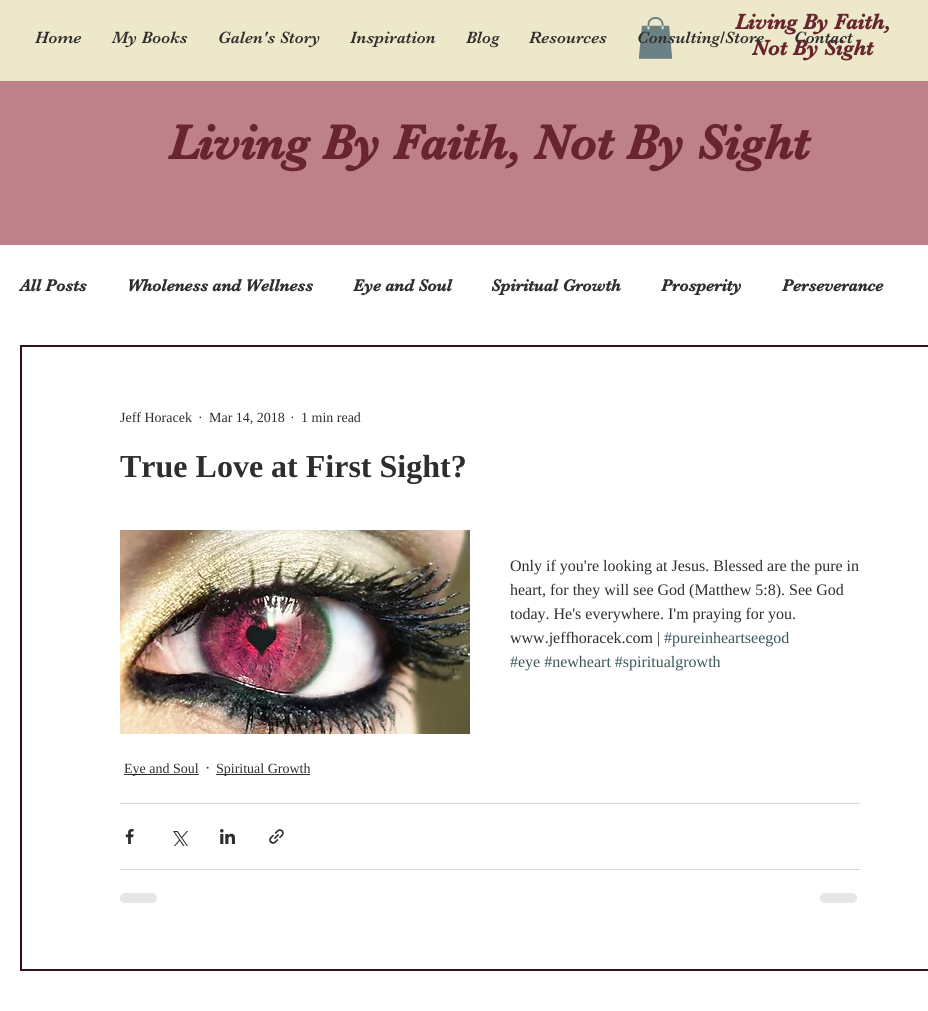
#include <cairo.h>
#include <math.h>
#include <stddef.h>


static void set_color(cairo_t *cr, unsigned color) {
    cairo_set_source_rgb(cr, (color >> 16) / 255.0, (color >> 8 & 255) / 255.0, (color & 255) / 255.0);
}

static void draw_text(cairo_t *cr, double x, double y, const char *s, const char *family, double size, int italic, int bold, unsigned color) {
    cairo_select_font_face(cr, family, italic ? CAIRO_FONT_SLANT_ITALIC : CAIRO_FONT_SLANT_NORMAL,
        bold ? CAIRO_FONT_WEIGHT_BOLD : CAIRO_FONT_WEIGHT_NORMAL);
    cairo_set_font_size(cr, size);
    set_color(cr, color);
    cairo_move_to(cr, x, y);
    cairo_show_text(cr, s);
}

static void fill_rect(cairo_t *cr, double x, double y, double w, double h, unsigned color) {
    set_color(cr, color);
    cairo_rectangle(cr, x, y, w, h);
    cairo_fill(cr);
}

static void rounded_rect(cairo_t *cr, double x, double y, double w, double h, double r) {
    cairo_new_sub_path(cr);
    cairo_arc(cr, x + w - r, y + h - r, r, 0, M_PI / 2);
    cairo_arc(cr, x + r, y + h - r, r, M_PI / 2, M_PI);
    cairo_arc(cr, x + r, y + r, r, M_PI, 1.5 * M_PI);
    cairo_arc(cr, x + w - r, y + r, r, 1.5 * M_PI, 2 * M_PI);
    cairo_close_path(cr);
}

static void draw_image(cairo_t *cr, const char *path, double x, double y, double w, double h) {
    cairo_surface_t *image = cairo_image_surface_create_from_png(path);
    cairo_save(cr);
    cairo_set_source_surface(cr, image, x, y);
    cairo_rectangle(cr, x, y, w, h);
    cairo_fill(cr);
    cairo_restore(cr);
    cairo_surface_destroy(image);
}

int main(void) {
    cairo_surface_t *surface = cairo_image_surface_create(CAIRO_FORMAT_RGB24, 928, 1011);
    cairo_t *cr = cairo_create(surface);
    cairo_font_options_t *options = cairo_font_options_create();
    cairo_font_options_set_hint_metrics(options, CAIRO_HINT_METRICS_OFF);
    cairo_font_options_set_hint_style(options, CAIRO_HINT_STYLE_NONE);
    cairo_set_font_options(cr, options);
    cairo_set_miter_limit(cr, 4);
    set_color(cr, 0xBE8089);
    cairo_paint(cr);
    fill_rect(cr, 0, 0, 928, 81, 0xEDE8C9);
    draw_image(cr, "assets/img1.png", 638, 17, 35, 42);
    draw_text(cr, 735, 29, "Living By Faith,", "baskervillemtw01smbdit", 22, 0, 1, 0x69252E);
    draw_text(cr, 752, 55, "Not By Sight", "baskervillemtw01smbdit", 22, 0, 1, 0x69252E);
    draw_text(cr, 35, 43, "Home", "baskervillemtw01smbdit", 17, 0, 0, 0x2F2E2E);
    draw_text(cr, 112, 43, "My Books", "baskervillemtw01smbdit", 17, 0, 0, 0x2F2E2E);
    draw_text(cr, 218, 43, "Galen's Story", "baskervillemtw01smbdit", 17, 0, 0, 0x2F2E2E);
    draw_text(cr, 350, 43, "Inspiration", "baskervillemtw01smbdit", 17, 0, 0, 0x2F2E2E);
    draw_text(cr, 466, 43, "Blog", "baskervillemtw01smbdit", 17, 0, 0, 0x2F2E2E);
    draw_text(cr, 529, 43, "Resources", "baskervillemtw01smbdit", 17, 0, 0, 0x2F2E2E);
    draw_text(cr, 637, 43, "Consulting/Store", "baskervillemtw01smbdit", 17, 0, 0, 0x2F2E2E);
    draw_text(cr, 794, 43, "Contact", "baskervillemtw01smbdit", 17, 0, 0, 0x2F2E2E);
    draw_text(cr, 168, 159, "Living By Faith, Not By Sight", "baskervillemtw01smbdit", 50, 0, 1, 0x69252E);
    fill_rect(cr, 0, 245, 928, 766, 0xFFFFFF);
    draw_text(cr, 20, 291, "All Posts", "baskervillemtw01smbdit", 17, 0, 1, 0x2F2E2E);
    draw_text(cr, 127, 291, "Wholeness and Wellness", "baskervillemtw01smbdit", 17, 0, 1, 0x2F2E2E);
    draw_text(cr, 353, 291, "Eye and Soul", "baskervillemtw01smbdit", 17, 0, 1, 0x2F2E2E);
    draw_text(cr, 491, 291, "Spiritual Growth", "baskervillemtw01smbdit", 17, 0, 1, 0x2F2E2E);
    draw_text(cr, 661, 291, "Prosperity", "baskervillemtw01smbdit", 17, 0, 1, 0x2F2E2E);
    draw_text(cr, 782, 291, "Perseverance", "baskervillemtw01smbdit", 17, 0, 1, 0x2F2E2E);
    cairo_rectangle(cr, 21, 346, 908, 624);
    set_color(cr, 0x351217);
    cairo_stroke(cr);
    draw_text(cr, 120, 422, "Jeff Horacek", "Liberation Serif", 14, 0, 0, 0x2F2E2E);
    draw_text(cr, 198, 422, "·", "Liberation Serif", 14, 0, 0, 0x2F2E2E);
    draw_text(cr, 209, 422, "Mar 14, 2018", "Liberation Serif", 14, 0, 0, 0x2F2E2E);
    draw_text(cr, 290, 422, "·", "Liberation Serif", 14, 0, 0, 0x2F2E2E);
    draw_text(cr, 301, 422, "1 min read", "Liberation Serif", 14, 0, 0, 0x2F2E2E);
    draw_text(cr, 120, 477, "True Love at First Sight?", "Liberation Serif", 32, 0, 1, 0x2F2E2E);
    draw_image(cr, "assets/img2.png", 120, 530, 350, 204);
    draw_text(cr, 510, 571, "Only if you're looking at Jesus. Blessed are the pure in", "Liberation Serif", 16, 0, 0, 0x2F2E2E);
    draw_text(cr, 510, 595, "heart, for they will see God (Matthew 5:8). See God", "Liberation Serif", 16, 0, 0, 0x2F2E2E);
    draw_text(cr, 510, 619, "today. He's everywhere. I'm praying for you.", "Liberation Serif", 16, 0, 0, 0x2F2E2E);
    draw_text(cr, 510, 643, "www.jeffhoracek.com |", "Liberation Serif", 16, 0, 0, 0x2F2E2E);
    draw_text(cr, 664, 643, "#pureinheartseegod", "Liberation Serif", 16, 0, 0, 0x39575A);
    draw_text(cr, 510, 667, "#eye #newheart #spiritualgrowth", "Liberation Serif", 16, 0, 0, 0x39575A);
    fill_rect(cr, 124, 774, 75, 1, 0x2F2E2E);
    draw_text(cr, 124, 773, "Eye and Soul", "Liberation Serif", 14, 0, 0, 0x2F2E2E);
    draw_text(cr, 205, 773, "·", "Liberation Serif", 16, 0, 0, 0x2F2E2E);
    fill_rect(cr, 216, 774, 94, 1, 0x2F2E2E);
    draw_text(cr, 216, 773, "Spiritual Growth", "Liberation Serif", 14, 0, 0, 0x2F2E2E);
    fill_rect(cr, 120, 803, 740, 1, 0xD5D5D5);
    draw_image(cr, "assets/img3.png", 125, 829, 9, 15);
    draw_image(cr, "assets/img4.png", 173, 831, 15, 15);
    draw_image(cr, "assets/img5.png", 220, 829, 15, 15);
    draw_image(cr, "assets/img6.png", 269, 829, 15, 15);
    fill_rect(cr, 120, 869, 740, 1, 0xD5D5D5);
    set_color(cr, 0xE6E6E6);
    rounded_rect(cr, 120, 893, 37, 10, 5);
    cairo_fill(cr);
    rounded_rect(cr, 820, 893, 37, 10, 5);
    cairo_fill(cr);
    cairo_surface_write_to_png(surface, "output.png");
    cairo_font_options_destroy(options);
    cairo_destroy(cr);
    cairo_surface_destroy(surface);
    return 0;
}
